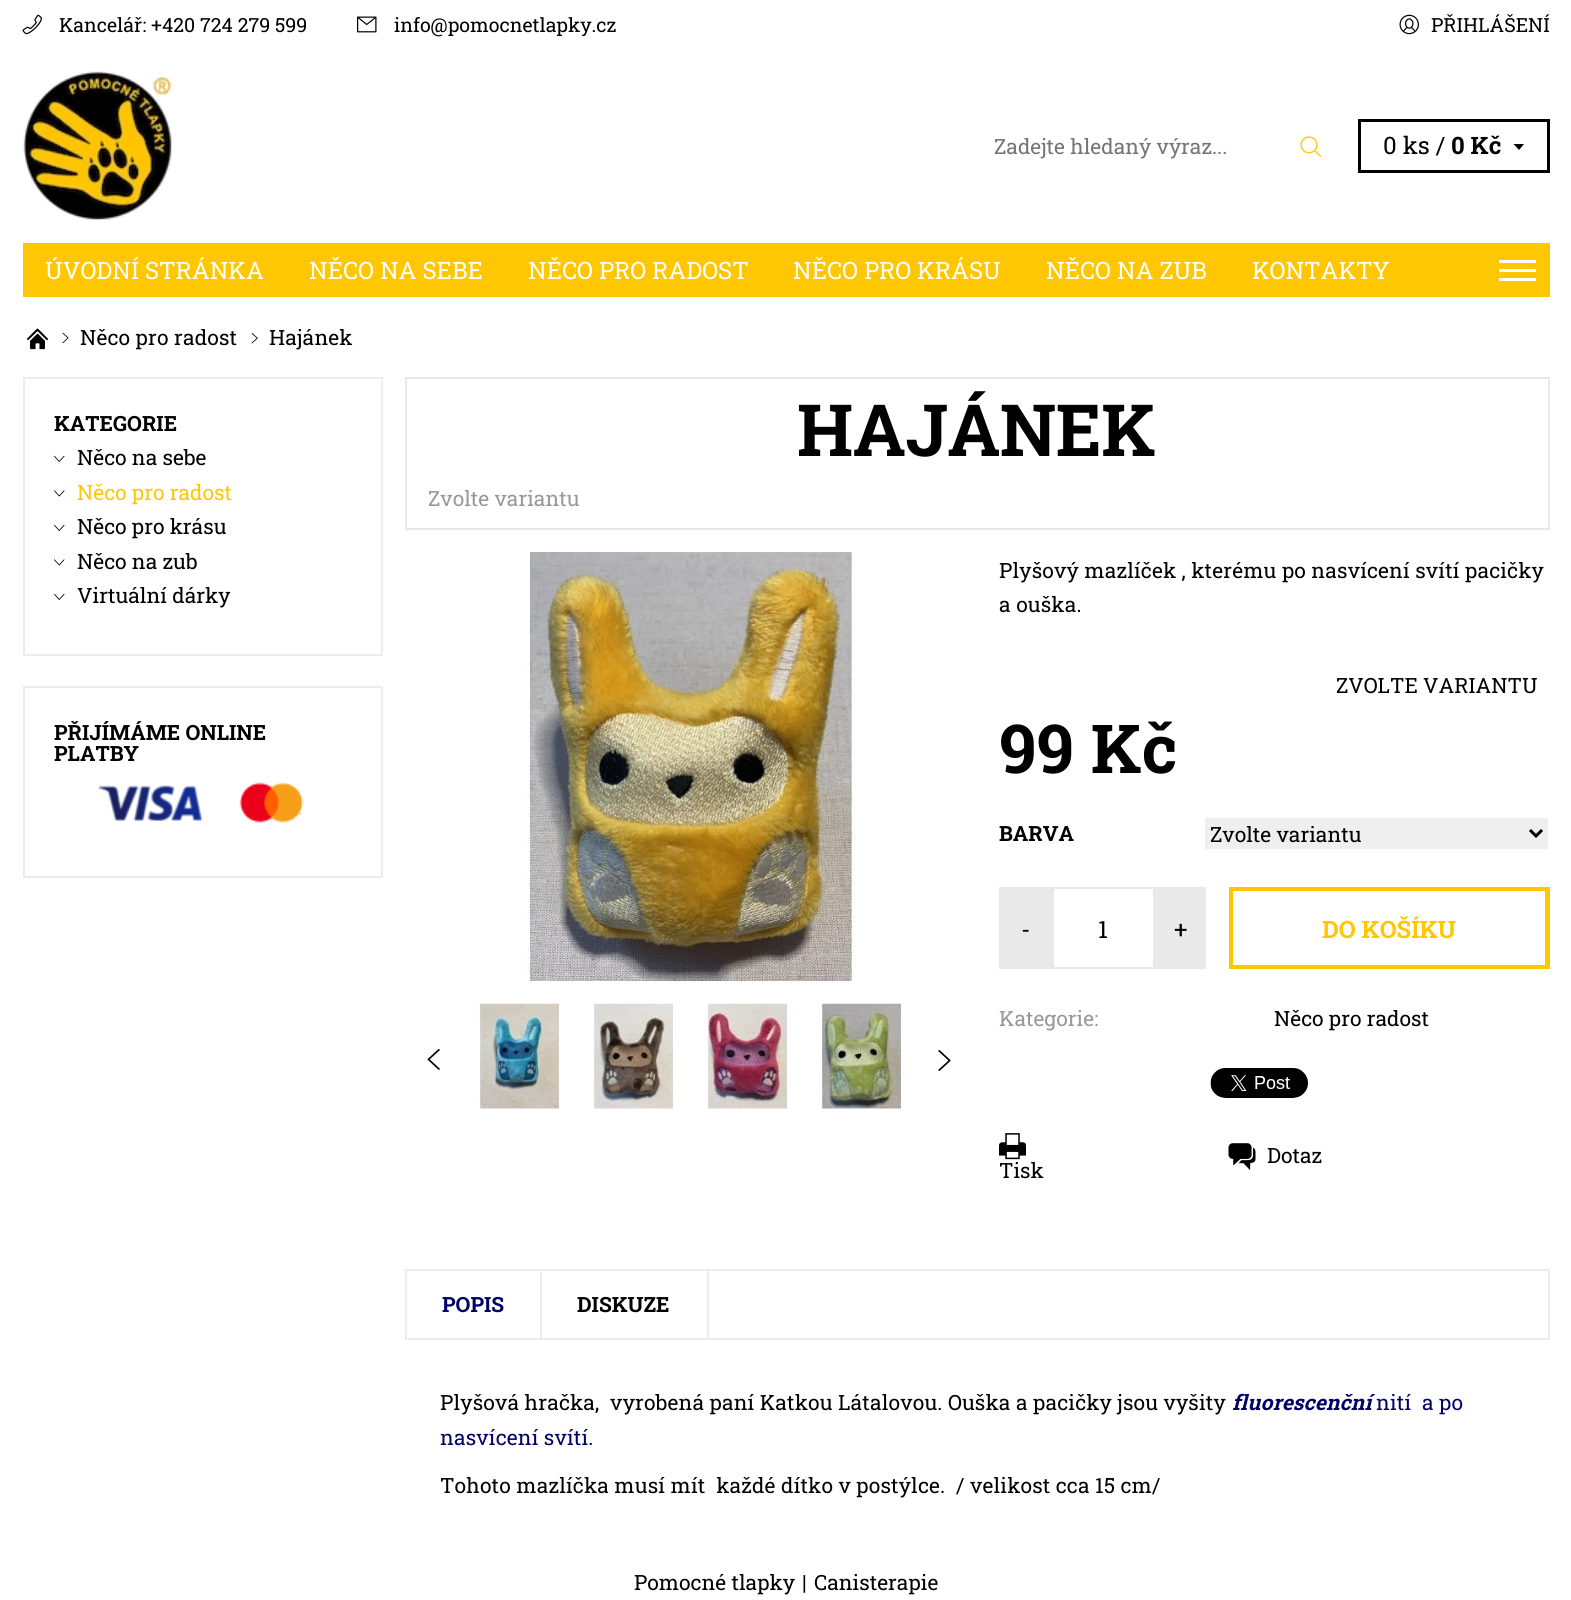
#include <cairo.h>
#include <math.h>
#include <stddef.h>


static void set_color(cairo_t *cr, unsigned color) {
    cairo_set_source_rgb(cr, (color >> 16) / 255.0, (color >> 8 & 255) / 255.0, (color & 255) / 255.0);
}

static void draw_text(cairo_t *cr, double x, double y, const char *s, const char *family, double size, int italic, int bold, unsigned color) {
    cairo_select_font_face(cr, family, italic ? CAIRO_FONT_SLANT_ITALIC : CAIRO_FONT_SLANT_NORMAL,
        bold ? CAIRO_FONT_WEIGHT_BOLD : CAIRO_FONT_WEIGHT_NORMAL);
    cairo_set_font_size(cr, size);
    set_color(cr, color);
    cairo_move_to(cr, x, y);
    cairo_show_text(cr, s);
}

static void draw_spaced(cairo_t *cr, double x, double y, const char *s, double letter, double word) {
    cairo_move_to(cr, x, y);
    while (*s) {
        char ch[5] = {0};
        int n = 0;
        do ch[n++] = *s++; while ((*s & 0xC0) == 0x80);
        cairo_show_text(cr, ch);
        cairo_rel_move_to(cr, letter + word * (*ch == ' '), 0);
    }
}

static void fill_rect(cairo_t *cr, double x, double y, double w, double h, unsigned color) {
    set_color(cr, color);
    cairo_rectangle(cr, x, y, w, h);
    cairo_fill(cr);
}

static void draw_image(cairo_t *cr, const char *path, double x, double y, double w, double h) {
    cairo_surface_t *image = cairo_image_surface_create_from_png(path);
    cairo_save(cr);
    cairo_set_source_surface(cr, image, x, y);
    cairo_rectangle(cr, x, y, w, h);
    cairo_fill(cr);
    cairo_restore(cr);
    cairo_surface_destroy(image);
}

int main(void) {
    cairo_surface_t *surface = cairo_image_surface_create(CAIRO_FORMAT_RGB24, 1571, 1600);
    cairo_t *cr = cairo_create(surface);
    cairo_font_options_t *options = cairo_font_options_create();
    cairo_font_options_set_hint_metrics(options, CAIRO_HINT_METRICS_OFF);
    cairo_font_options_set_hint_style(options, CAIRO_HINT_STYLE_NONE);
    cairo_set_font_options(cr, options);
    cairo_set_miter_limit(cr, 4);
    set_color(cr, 0xFFFFFF);
    cairo_paint(cr);
    draw_image(cr, "assets/img1.png", 22, 14, 20, 21);
    draw_text(cr, 59, 32, "Kancelář: +420 724 279 599", "Roboto Slab", 19.5, 0, 0, 0x000000);
    draw_image(cr, "assets/img2.png", 357, 16, 20, 17);
    draw_text(cr, 394, 32, "info@pomocnetlapky.cz", "Roboto Slab", 19.5, 0, 0, 0x000000);
    draw_image(cr, "assets/img3.png", 1399, 14, 20, 21);
    draw_text(cr, 1431, 32, "PŘIHLÁŠENÍ", "Roboto Slab", 19.5, 0, 0, 0x000000);
    draw_image(cr, "assets/img4.png", 23, 71, 149, 149);
    draw_text(cr, 994, 154, "Zadejte hledaný výraz...", "Roboto Slab", 21, 0, 0, 0x757575);
    draw_image(cr, "assets/img5.png", 1300, 136, 22, 22);
    cairo_rectangle(cr, 1359.5, 120.5, 189, 51);
    set_color(cr, 0x000000);
    cairo_set_line_width(cr, 3);
    cairo_stroke(cr);
    draw_text(cr, 1383, 154, "0 ks /", "Roboto Slab", 24, 0, 0, 0x000000);
    draw_text(cr, 1451, 154, "0 Kč", "Roboto Slab", 24, 0, 1, 0x000000);
    cairo_new_path(cr);
    cairo_move_to(cr, 1519, 144);
    cairo_line_to(cr, 1524, 144);
    cairo_line_to(cr, 1519, 150);
    cairo_line_to(cr, 1513.5, 144);
    cairo_close_path(cr);
    cairo_fill(cr);
    fill_rect(cr, 23, 243, 1527, 54, 0xFFC702);
    draw_text(cr, 45, 279, "ÚVODNÍ STRÁNKA", "Roboto Slab", 24, 0, 0, 0xFFFFFF);
    draw_text(cr, 309, 279, "NĚCO NA SEBE", "Roboto Slab", 24, 0, 0, 0xFFFFFF);
    draw_text(cr, 528, 279, "NĚCO PRO RADOST", "Roboto Slab", 24, 0, 0, 0xFFFFFF);
    draw_text(cr, 793, 279, "NĚCO PRO KRÁSU", "Roboto Slab", 24, 0, 0, 0xFFFFFF);
    draw_text(cr, 1046, 279, "NĚCO NA ZUB", "Roboto Slab", 24, 0, 0, 0xFFFFFF);
    draw_text(cr, 1252, 279, "KONTAKTY", "Roboto Slab", 24, 0, 0, 0xFFFFFF);
    fill_rect(cr, 1499, 260, 37, 3, 0xFFFFFF);
    fill_rect(cr, 1499, 269, 37, 3, 0xFFFFFF);
    fill_rect(cr, 1499, 278, 37, 3, 0xFFFFFF);
    draw_image(cr, "assets/img6.png", 27, 328, 21, 22);
    draw_image(cr, "assets/img7.png", 62, 332, 7, 12);
    cairo_set_font_size(cr, 21);
    set_color(cr, 0x000000);
    draw_spaced(cr, 80, 345, "Něco pro radost", 0.15, 0);
    draw_image(cr, "assets/img8.png", 251, 333, 7, 11);
    draw_spaced(cr, 269, 345, "Hajánek", 0.15, 0);
    cairo_rectangle(cr, 24, 378, 358, 277);
    set_color(cr, 0xEDEDED);
    cairo_set_line_width(cr, 2);
    cairo_stroke(cr);
    draw_text(cr, 54, 431, "KATEGORIE", "Roboto Slab", 21, 0, 1, 0x000000);
    draw_image(cr, "assets/img9.png", 54, 455, 11, 7);
    draw_text(cr, 77, 465, "Něco na sebe", "Roboto Slab", 21, 0, 0, 0x000000);
    draw_image(cr, "assets/img10.png", 54, 490, 11, 7);
    draw_text(cr, 77, 500, "Něco pro radost", "Roboto Slab", 21, 0, 0, 0xFFC702);
    draw_image(cr, "assets/img9.png", 54, 524, 11, 7);
    draw_text(cr, 77, 534, "Něco pro krásu", "Roboto Slab", 21, 0, 0, 0x000000);
    draw_image(cr, "assets/img10.png", 54, 559, 11, 7);
    draw_text(cr, 77, 569, "Něco na zub", "Roboto Slab", 21, 0, 0, 0x000000);
    draw_image(cr, "assets/img9.png", 54, 593, 11, 7);
    draw_text(cr, 77, 603, "Virtuální dárky", "Roboto Slab", 21, 0, 0, 0x000000);
    cairo_rectangle(cr, 24, 687, 358, 190);
    set_color(cr, 0xEDEDED);
    cairo_stroke(cr);
    draw_text(cr, 54, 740, "PŘIJÍMÁME ONLINE", "Roboto Slab", 21, 0, 1, 0x000000);
    draw_text(cr, 54, 761, "PLATBY", "Roboto Slab", 21, 0, 1, 0x000000);
    draw_image(cr, "assets/img11.png", 98, 782, 206, 41);
    cairo_rectangle(cr, 406, 378, 1143, 151);
    set_color(cr, 0xE9E9E9);
    cairo_stroke(cr);
    cairo_set_font_size(cr, 72);
    set_color(cr, 0x000000);
    draw_spaced(cr, 797, 456, "HAJÁNEK", -0.5, 0);
    draw_text(cr, 428, 506, "Zvolte variantu", "Roboto Slab", 21, 0, 0, 0x989898);
    draw_image(cr, "assets/img12.png", 526, 552, 332, 429);
    draw_image(cr, "assets/img13.png", 427, 1049, 13, 21);
    draw_image(cr, "assets/img14.png", 479, 1003, 81, 106);
    draw_image(cr, "assets/img15.png", 593, 1003, 81, 106);
    draw_image(cr, "assets/img16.png", 704, 1003, 83, 106);
    draw_image(cr, "assets/img17.png", 821, 1003, 81, 106);
    draw_image(cr, "assets/img18.png", 938, 1050, 13, 21);
    set_color(cr, 0x000000);
    draw_spaced(cr, 999, 578, "Plyšový mazlíček , kterému po nasvícení svítí pacičky", 0.15, 0);
    draw_spaced(cr, 999, 612, "a ouška.", 0.15, 0);
    draw_text(cr, 1336, 693, "ZVOLTE VARIANTU", "Roboto Slab", 21, 0, 0, 0x000000);
    draw_text(cr, 999, 773, "99 Kč", "Roboto Slab", 67.5, 0, 1, 0x000000);
    draw_text(cr, 999, 841, "BARVA", "Roboto Slab", 21, 0, 1, 0x000000);
    fill_rect(cr, 1205, 818, 343, 31, 0xEFEFEF);
    cairo_new_path(cr);
    cairo_move_to(cr, 1530, 830);
    cairo_line_to(cr, 1536, 836);
    cairo_line_to(cr, 1542, 830);
    set_color(cr, 0x000000);
    cairo_set_line_width(cr, 3);
    cairo_stroke(cr);
    draw_text(cr, 1210, 842, "Zvolte variantu", "Roboto Slab", 21, 0, 0, 0x000000);
    fill_rect(cr, 999, 887, 53, 82, 0xE9E9E9);
    draw_text(cr, 1021, 938, "-", "Roboto Slab", 24, 0, 0, 0x000000);
    cairo_rectangle(cr, 1053, 888, 101, 80);
    set_color(cr, 0xE9E9E9);
    cairo_set_line_width(cr, 2);
    cairo_stroke(cr);
    draw_text(cr, 1098, 938, "1", "Roboto Slab", 24, 0, 0, 0x000000);
    fill_rect(cr, 1155, 887, 51, 82, 0xE9E9E9);
    draw_text(cr, 1174, 938, "+", "Roboto Slab", 24, 0, 0, 0x000000);
    cairo_rectangle(cr, 1231.5, 889.5, 315, 77);
    set_color(cr, 0xFFC702);
    cairo_set_line_width(cr, 3);
    cairo_stroke(cr);
    cairo_rectangle(cr, 1230, 888, 319, 80);
    cairo_set_line_width(cr, 2);
    cairo_stroke(cr);
    draw_text(cr, 1322, 938, "DO KOŠÍKU", "Roboto Slab", 24, 0, 1, 0xFFC702);
    draw_text(cr, 999, 1026, "Kategorie:", "Roboto Slab", 21, 0, 0, 0x989898);
    draw_text(cr, 1274, 1026, "Něco pro radost", "Roboto Slab", 21, 0, 0, 0x000000);
    draw_image(cr, "assets/img19.png", 1210, 1068, 98, 30);
    draw_image(cr, "assets/img20.png", 1228, 1143, 28, 27);
    draw_text(cr, 1267, 1163, "Dotaz", "Roboto Slab", 21, 0, 0, 0x000000);
    draw_image(cr, "assets/img21.png", 999, 1133, 27, 27);
    draw_text(cr, 999, 1178, "Tisk", "Roboto Slab", 21, 0, 0, 0x000000);
    cairo_rectangle(cr, 406, 1270, 1143, 69);
    set_color(cr, 0xEDEDED);
    cairo_stroke(cr);
    fill_rect(cr, 540, 1271, 2, 67, 0xEDEDED);
    draw_text(cr, 442, 1312, "POPIS", "Roboto Slab", 21, 0, 1, 0x010066);
    fill_rect(cr, 707, 1271, 2, 67, 0xEDEDED);
    draw_text(cr, 577, 1312, "DISKUZE", "Roboto Slab", 21, 0, 1, 0x000000);
    cairo_select_font_face(cr, "Roboto Slab", CAIRO_FONT_SLANT_NORMAL, CAIRO_FONT_WEIGHT_NORMAL);
    draw_spaced(cr, 440, 1410, "Plyšová hračka,  vyrobená paní Katkou Látalovou. Ouška a pacičky jsou vyšity", 0.15, 0);
    cairo_select_font_face(cr, "Roboto Slab", CAIRO_FONT_SLANT_ITALIC, CAIRO_FONT_WEIGHT_BOLD);
    set_color(cr, 0x010066);
    draw_spaced(cr, 1232, 1410, "fluorescenční", 0.15, 0);
    cairo_select_font_face(cr, "Roboto Slab", CAIRO_FONT_SLANT_NORMAL, CAIRO_FONT_WEIGHT_NORMAL);
    draw_spaced(cr, 1376, 1410, "nití  a po", 0.15, 0);
    draw_spaced(cr, 440, 1445, "nasvícení svítí.", 0.15, 0);
    set_color(cr, 0x000000);
    draw_spaced(cr, 440, 1493, "Tohoto mazlíčka musí mít  každé dítko v postýlce.  / velikost cca 15 cm/", 0.15, 0);
    draw_text(cr, 634, 1590, "Pomocné tlapky", "Roboto Slab", 21, 0, 0, 0x000000);
    draw_text(cr, 802, 1590, "|", "Roboto Slab", 21, 0, 0, 0x000000);
    draw_text(cr, 814, 1590, "Canisterapie", "Roboto Slab", 21, 0, 0, 0x000000);
    cairo_surface_write_to_png(surface, "output.png");
    cairo_font_options_destroy(options);
    cairo_destroy(cr);
    cairo_surface_destroy(surface);
    return 0;
}
